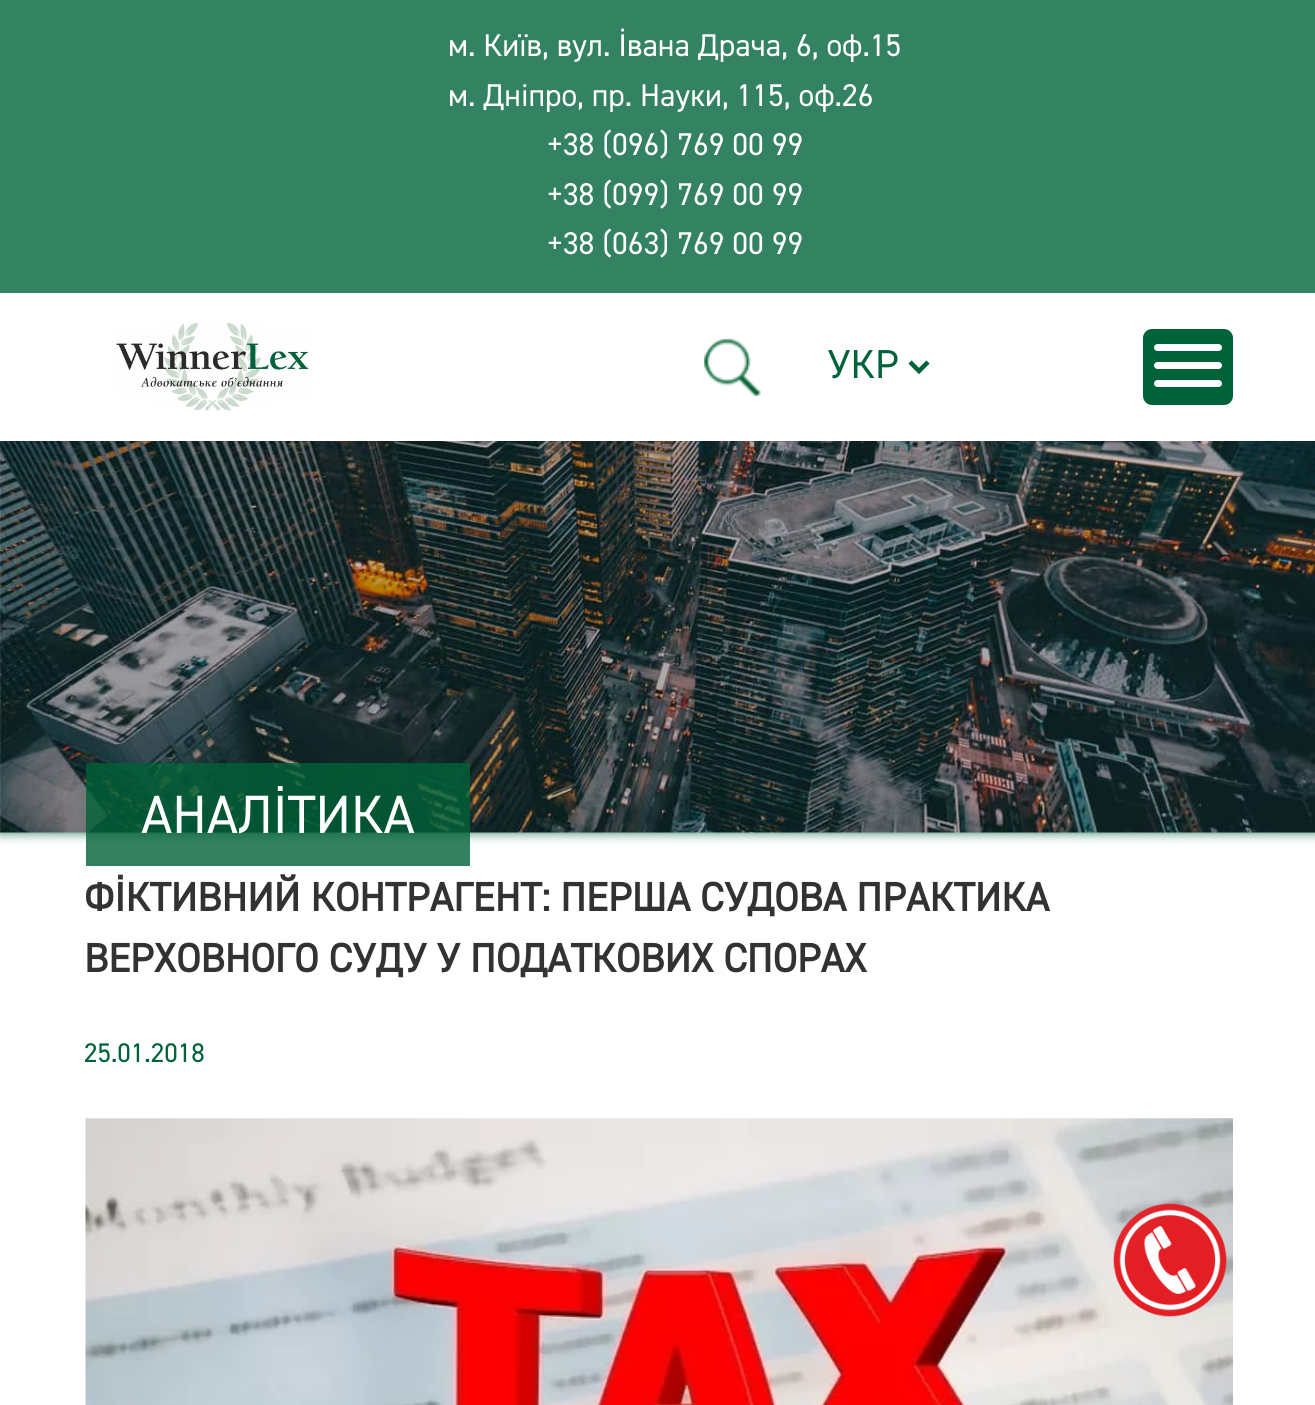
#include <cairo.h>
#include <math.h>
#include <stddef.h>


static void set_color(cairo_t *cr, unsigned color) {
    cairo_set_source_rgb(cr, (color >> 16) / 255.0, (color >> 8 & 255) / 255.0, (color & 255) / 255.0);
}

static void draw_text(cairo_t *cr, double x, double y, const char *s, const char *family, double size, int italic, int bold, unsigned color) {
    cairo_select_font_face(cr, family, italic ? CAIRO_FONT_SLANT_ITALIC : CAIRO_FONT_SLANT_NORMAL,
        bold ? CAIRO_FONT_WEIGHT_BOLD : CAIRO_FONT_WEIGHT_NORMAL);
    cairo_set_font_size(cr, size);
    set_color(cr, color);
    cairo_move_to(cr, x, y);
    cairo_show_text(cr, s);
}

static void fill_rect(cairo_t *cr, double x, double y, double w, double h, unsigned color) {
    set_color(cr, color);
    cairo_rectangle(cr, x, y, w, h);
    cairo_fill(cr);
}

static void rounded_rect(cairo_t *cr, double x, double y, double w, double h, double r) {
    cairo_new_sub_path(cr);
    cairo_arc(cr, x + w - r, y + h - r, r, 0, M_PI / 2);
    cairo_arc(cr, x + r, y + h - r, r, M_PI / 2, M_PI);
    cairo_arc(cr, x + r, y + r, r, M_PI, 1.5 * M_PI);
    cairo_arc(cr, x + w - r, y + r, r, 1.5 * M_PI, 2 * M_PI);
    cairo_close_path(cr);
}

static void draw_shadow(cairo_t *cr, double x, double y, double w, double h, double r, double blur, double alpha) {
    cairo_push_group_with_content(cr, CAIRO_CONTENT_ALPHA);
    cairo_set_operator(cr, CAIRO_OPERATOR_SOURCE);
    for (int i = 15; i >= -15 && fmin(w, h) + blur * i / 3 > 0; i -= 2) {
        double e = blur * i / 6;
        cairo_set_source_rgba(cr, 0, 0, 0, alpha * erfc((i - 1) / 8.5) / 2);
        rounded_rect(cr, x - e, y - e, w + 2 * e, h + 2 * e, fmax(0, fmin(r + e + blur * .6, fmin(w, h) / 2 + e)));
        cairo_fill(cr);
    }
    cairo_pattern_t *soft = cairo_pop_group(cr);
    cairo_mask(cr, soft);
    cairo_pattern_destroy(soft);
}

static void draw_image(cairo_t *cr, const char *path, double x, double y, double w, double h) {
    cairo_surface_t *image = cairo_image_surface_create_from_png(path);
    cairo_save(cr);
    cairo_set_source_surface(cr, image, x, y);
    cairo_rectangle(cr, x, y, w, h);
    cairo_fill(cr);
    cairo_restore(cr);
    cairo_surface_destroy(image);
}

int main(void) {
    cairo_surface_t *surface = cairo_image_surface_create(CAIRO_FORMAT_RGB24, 1315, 1405);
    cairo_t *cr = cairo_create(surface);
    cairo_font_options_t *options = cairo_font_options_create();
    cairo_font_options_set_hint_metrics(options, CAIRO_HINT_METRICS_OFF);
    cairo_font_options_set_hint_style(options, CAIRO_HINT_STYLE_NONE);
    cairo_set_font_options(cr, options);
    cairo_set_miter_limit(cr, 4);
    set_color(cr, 0xFFFFFF);
    cairo_paint(cr);
    set_color(cr, 0x006239);
    draw_shadow(cr, 0, 270, 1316, 563, 0, 5.5, 0.8);
    fill_rect(cr, 0, 293, 1315, 148, 0xFFFFFF);
    fill_rect(cr, 0, 0, 1315, 293, 0x338261);
    draw_text(cr, 448, 56, "м. Київ, вул. Івана Драча, 6, оф.15", "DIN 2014", 31.5, 0, 0, 0xFFFFFF);
    draw_text(cr, 448, 106, "м. Дніпро, пр. Науки, 115, оф.26", "DIN 2014", 31.5, 0, 0, 0xFFFFFF);
    draw_text(cr, 547, 155, "+38 (096) 769 00 99", "DIN 2014", 31.5, 0, 0, 0xFFFFFF);
    draw_text(cr, 547, 205, "+38 (099) 769 00 99", "DIN 2014", 31.5, 0, 0, 0xFFFFFF);
    draw_text(cr, 547, 254, "+38 (063) 769 00 99", "DIN 2014", 31.5, 0, 0, 0xFFFFFF);
    draw_image(cr, "assets/img1.png", 116, 323, 198, 88);
    draw_image(cr, "assets/img2.png", 704, 338, 57, 58);
    cairo_new_path(cr);
    cairo_move_to(cr, 910, 362);
    cairo_line_to(cr, 919, 371);
    cairo_line_to(cr, 928, 362);
    set_color(cr, 0x006239);
    cairo_set_line_width(cr, 4.5);
    cairo_stroke(cr);
    draw_text(cr, 827, 378, "УКР", "DIN 2014", 40.5, 0, 0, 0x006239);
    rounded_rect(cr, 1143, 329, 90, 76, 9);
    cairo_fill(cr);
    set_color(cr, 0xFFFFFF);
    rounded_rect(cr, 1154, 344, 68, 7, 3.5);
    cairo_fill(cr);
    rounded_rect(cr, 1154, 362, 68, 7, 3.5);
    cairo_fill(cr);
    rounded_rect(cr, 1154, 380, 68, 7, 3.5);
    cairo_fill(cr);
    draw_image(cr, "assets/img3.png", 0, 441, 1315, 392);
    cairo_set_source_rgba(cr, 0, 0.384, 0.224, 0.8);
    cairo_rectangle(cr, 86, 763, 384, 103);
    cairo_fill(cr);
    draw_text(cr, 141, 833, "АНАЛІТИКА", "DIN 2014", 54, 0, 0, 0xFFFFFF);
    draw_text(cr, 84, 911, "ФІКТИВНИЙ КОНТРАГЕНТ: ПЕРША СУДОВА ПРАКТИКА", "DIN 2014", 40.5, 0, 1, 0x323232);
    draw_text(cr, 84, 972, "ВЕРХОВНОГО СУДУ У ПОДАТКОВИХ СПОРАХ", "DIN 2014", 40.5, 0, 1, 0x323232);
    draw_text(cr, 84, 1062, "25.01.2018", "DIN 2014", 27, 0, 0, 0x006239);
    draw_image(cr, "assets/img4.png", 85, 1118, 1148, 287);
    draw_image(cr, "assets/img5.png", 1113, 1203, 114, 114);
    cairo_surface_write_to_png(surface, "output.png");
    cairo_font_options_destroy(options);
    cairo_destroy(cr);
    cairo_surface_destroy(surface);
    return 0;
}
